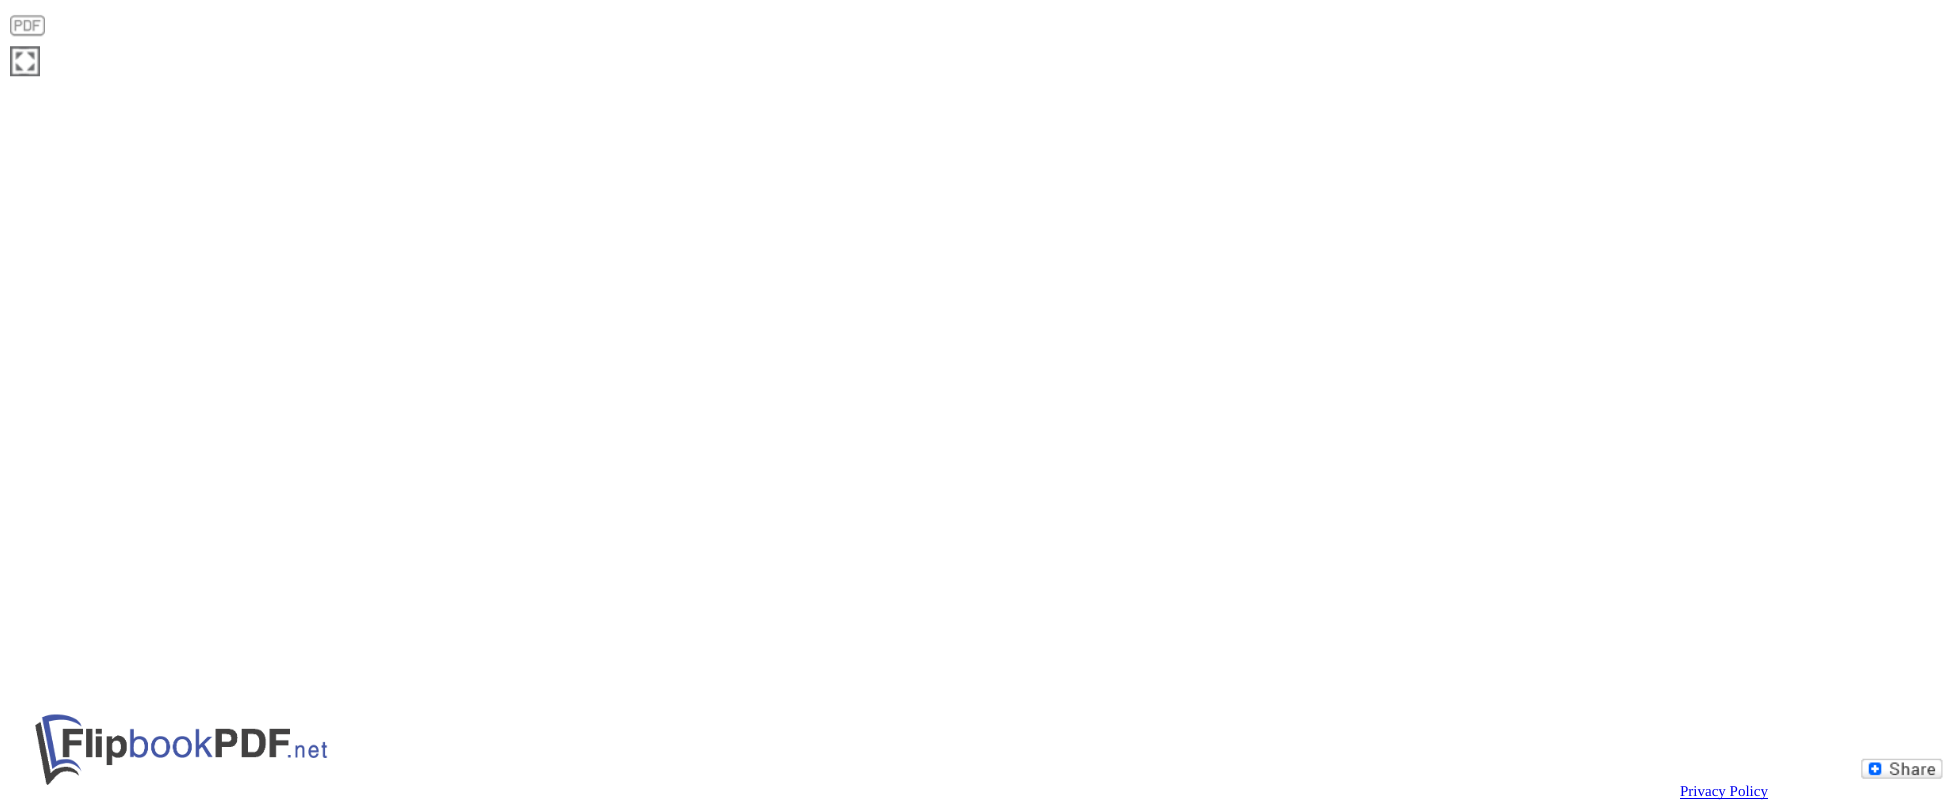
#include <cairo.h>
#include <math.h>
#include <stddef.h>


static void set_color(cairo_t *cr, unsigned color) {
    cairo_set_source_rgb(cr, (color >> 16) / 255.0, (color >> 8 & 255) / 255.0, (color & 255) / 255.0);
}

static void draw_text(cairo_t *cr, double x, double y, const char *s, const char *family, double size, int italic, int bold, unsigned color) {
    cairo_select_font_face(cr, family, italic ? CAIRO_FONT_SLANT_ITALIC : CAIRO_FONT_SLANT_NORMAL,
        bold ? CAIRO_FONT_WEIGHT_BOLD : CAIRO_FONT_WEIGHT_NORMAL);
    cairo_set_font_size(cr, size);
    set_color(cr, color);
    cairo_move_to(cr, x, y);
    cairo_show_text(cr, s);
}

static void fill_rect(cairo_t *cr, double x, double y, double w, double h, unsigned color) {
    set_color(cr, color);
    cairo_rectangle(cr, x, y, w, h);
    cairo_fill(cr);
}

static void draw_image(cairo_t *cr, const char *path, double x, double y, double w, double h) {
    cairo_surface_t *image = cairo_image_surface_create_from_png(path);
    cairo_save(cr);
    cairo_set_source_surface(cr, image, x, y);
    cairo_rectangle(cr, x, y, w, h);
    cairo_fill(cr);
    cairo_restore(cr);
    cairo_surface_destroy(image);
}

int main(void) {
    cairo_surface_t *surface = cairo_image_surface_create(CAIRO_FORMAT_RGB24, 1954, 810);
    cairo_t *cr = cairo_create(surface);
    cairo_font_options_t *options = cairo_font_options_create();
    cairo_font_options_set_hint_metrics(options, CAIRO_HINT_METRICS_OFF);
    cairo_font_options_set_hint_style(options, CAIRO_HINT_STYLE_NONE);
    cairo_set_font_options(cr, options);
    cairo_set_miter_limit(cr, 4);
    set_color(cr, 0xFFFFFF);
    cairo_paint(cr);
    draw_image(cr, "assets/img1.png", 10, 14, 35, 23);
    draw_image(cr, "assets/img2.png", 10, 46, 30, 31);
    draw_image(cr, "assets/img3.png", 35, 714, 293, 71);
    draw_image(cr, "assets/img4.png", 1861, 758, 82, 21);
    fill_rect(cr, 1680, 798, 88, 1, 0x0000EE);
    draw_text(cr, 1680, 796, "Privacy Policy", "Liberation Serif", 15, 0, 0, 0x0000EE);
    cairo_surface_write_to_png(surface, "output.png");
    cairo_font_options_destroy(options);
    cairo_destroy(cr);
    cairo_surface_destroy(surface);
    return 0;
}
